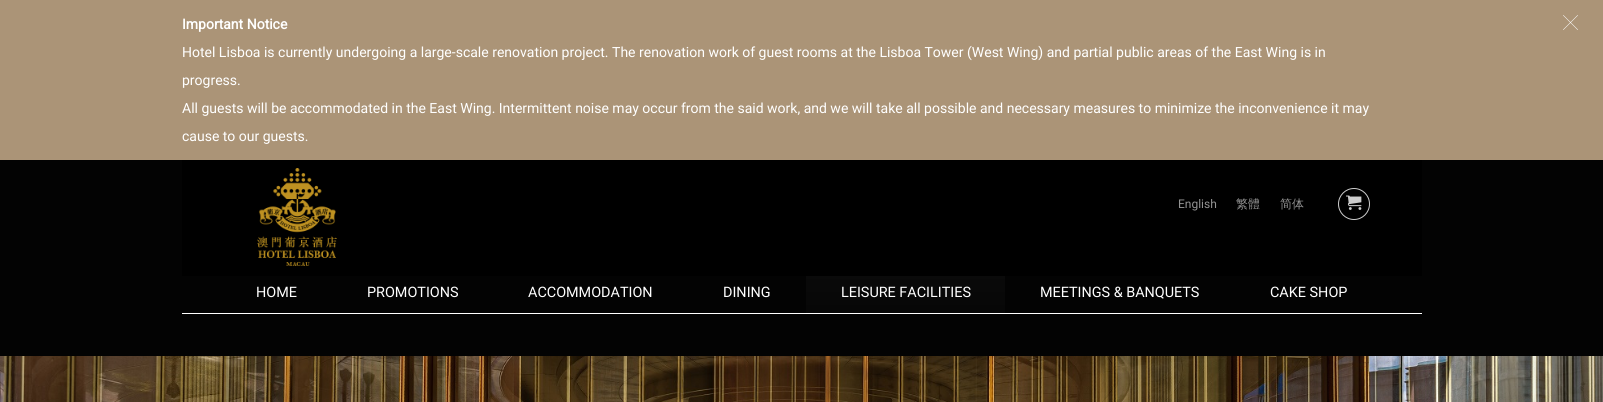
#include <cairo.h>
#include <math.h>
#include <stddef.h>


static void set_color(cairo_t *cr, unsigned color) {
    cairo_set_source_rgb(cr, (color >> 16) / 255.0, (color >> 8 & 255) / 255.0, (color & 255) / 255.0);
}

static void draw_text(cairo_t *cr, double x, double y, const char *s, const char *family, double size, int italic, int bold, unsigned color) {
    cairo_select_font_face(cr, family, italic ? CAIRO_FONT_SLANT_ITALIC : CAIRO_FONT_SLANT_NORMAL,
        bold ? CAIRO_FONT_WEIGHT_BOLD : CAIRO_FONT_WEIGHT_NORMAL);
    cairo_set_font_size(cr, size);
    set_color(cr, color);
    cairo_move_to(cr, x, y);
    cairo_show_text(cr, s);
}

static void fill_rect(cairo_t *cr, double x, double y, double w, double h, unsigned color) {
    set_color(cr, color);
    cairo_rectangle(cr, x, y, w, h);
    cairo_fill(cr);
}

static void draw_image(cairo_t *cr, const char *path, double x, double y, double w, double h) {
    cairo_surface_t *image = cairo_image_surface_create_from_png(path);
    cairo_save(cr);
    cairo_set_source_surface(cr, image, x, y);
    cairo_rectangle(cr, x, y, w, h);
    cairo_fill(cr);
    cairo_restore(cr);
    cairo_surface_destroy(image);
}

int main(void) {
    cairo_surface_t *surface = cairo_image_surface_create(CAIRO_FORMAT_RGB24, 1603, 402);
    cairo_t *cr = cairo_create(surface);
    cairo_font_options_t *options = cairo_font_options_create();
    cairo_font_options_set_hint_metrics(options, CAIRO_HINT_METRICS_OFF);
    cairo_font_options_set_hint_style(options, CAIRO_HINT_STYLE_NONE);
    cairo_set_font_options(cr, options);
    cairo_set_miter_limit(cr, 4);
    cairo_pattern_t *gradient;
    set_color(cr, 0xFFFFFF);
    cairo_paint(cr);
    fill_rect(cr, 0, 0, 1603, 160, 0xAB9477);
    draw_text(cr, 182, 29, "Important Notice", "Roboto", 14, 0, 1, 0xFFFFFF);
    draw_text(cr, 182, 57, "Hotel Lisboa is currently undergoing a large-scale renovation project. The renovation work of guest rooms at the Lisboa Tower (West Wing) and partial public areas of the East Wing is in", "Roboto", 14, 0, 0, 0xFFFFFF);
    draw_text(cr, 182, 85, "progress.", "Roboto", 14, 0, 0, 0xFFFFFF);
    draw_text(cr, 182, 113, "All guests will be accommodated in the East Wing. Intermittent noise may occur from the said work, and we will take all possible and necessary measures to minimize the inconvenience it may", "Roboto", 14, 0, 0, 0xFFFFFF);
    draw_text(cr, 182, 141, "cause to our guests.", "Roboto", 14, 0, 0, 0xFFFFFF);
    draw_image(cr, "assets/img1.png", 1563, 15, 15, 15);
    fill_rect(cr, 0, 160, 1603, 196, 0x030303);
    fill_rect(cr, 182, 160, 1240, 116, 0x000000);
    draw_image(cr, "assets/img2.png", 257, 168, 80, 98);
    draw_text(cr, 1178, 208, "English", "Roboto", 12, 0, 0, 0x939393);
    draw_text(cr, 1236, 208, "繁體", "WenQuanYi Zen Hei Medium", 12, 0, 0, 0x939393);
    draw_text(cr, 1280, 208, "简体", "WenQuanYi Zen Hei Medium", 12, 0, 0, 0x939393);
    cairo_new_path(cr);
    cairo_arc(cr, 1354, 204, 15.5, 0, 2 * M_PI);
    set_color(cr, 0xCCCCCC);
    cairo_set_line_width(cr, 1);
    cairo_stroke(cr);
    draw_image(cr, "assets/img3.png", 1346, 195, 16, 15);
    fill_rect(cr, 182, 313, 1240, 1, 0xFFFFFF);
    draw_text(cr, 256, 297, "HOME", "Roboto", 14.4, 0, 0, 0xFFFFFF);
    draw_text(cr, 367, 297, "PROMOTIONS", "Roboto", 14.4, 0, 0, 0xFFFFFF);
    draw_text(cr, 528, 297, "ACCOMMODATION", "Roboto", 14.4, 0, 0, 0xFFFFFF);
    draw_text(cr, 723, 297, "DINING", "Roboto", 14.4, 0, 0, 0xFFFFFF);
    gradient = cairo_pattern_create_linear(906, 273, 906, 313);
    cairo_pattern_add_color_stop_rgba(gradient, 0, 0.039, 0.039, 0.039, 1);
    cairo_pattern_add_color_stop_rgba(gradient, 1, 0.027, 0.027, 0.027, 1);
    cairo_set_source(cr, gradient);
    cairo_pattern_destroy(gradient);
    cairo_rectangle(cr, 806, 276, 199, 37);
    cairo_fill(cr);
    draw_text(cr, 841, 297, "LEISURE FACILITIES", "Roboto", 14.4, 0, 0, 0xFFFFFF);
    draw_text(cr, 1040, 297, "MEETINGS & BANQUETS", "Roboto", 14.4, 0, 0, 0xFFFFFF);
    draw_text(cr, 1270, 297, "CAKE SHOP", "Roboto", 14.4, 0, 0, 0xFFFFFF);
    draw_image(cr, "assets/img4.png", 0, 356, 1603, 46);
    cairo_surface_write_to_png(surface, "output.png");
    cairo_font_options_destroy(options);
    cairo_destroy(cr);
    cairo_surface_destroy(surface);
    return 0;
}
